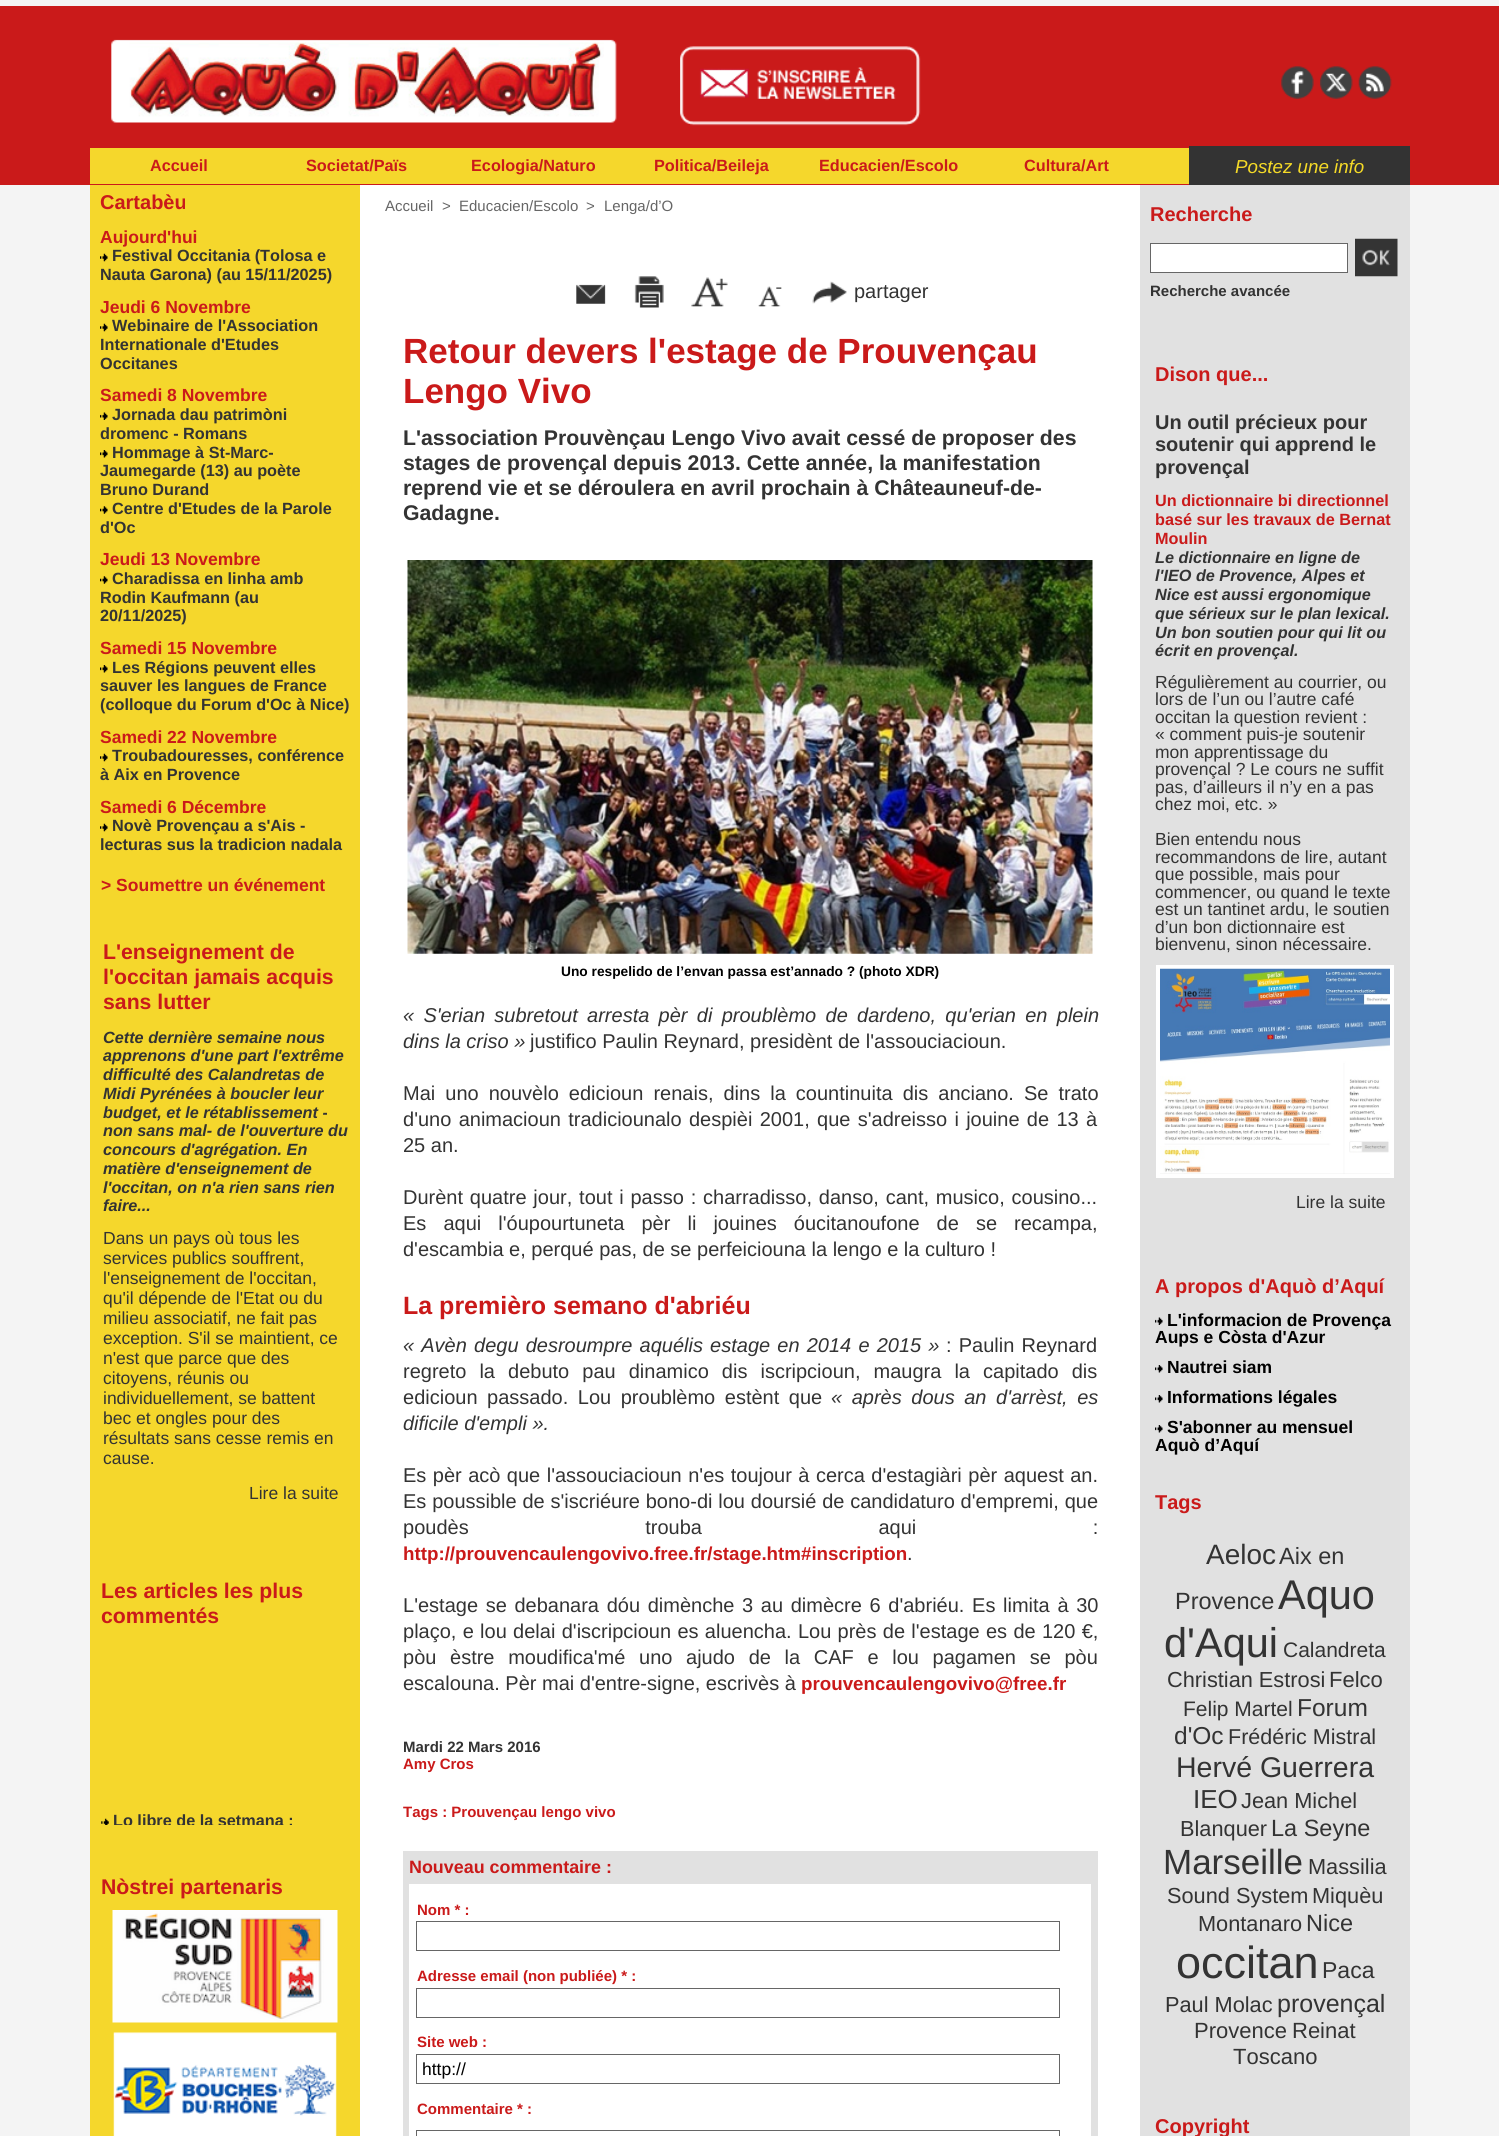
#include <cairo.h>
#include <math.h>
#include <stddef.h>


static void set_color(cairo_t *cr, unsigned color) {
    cairo_set_source_rgb(cr, (color >> 16) / 255.0, (color >> 8 & 255) / 255.0, (color & 255) / 255.0);
}

static void draw_text(cairo_t *cr, double x, double y, const char *s, const char *family, double size, int italic, int bold, unsigned color) {
    cairo_select_font_face(cr, family, italic ? CAIRO_FONT_SLANT_ITALIC : CAIRO_FONT_SLANT_NORMAL,
        bold ? CAIRO_FONT_WEIGHT_BOLD : CAIRO_FONT_WEIGHT_NORMAL);
    cairo_set_font_size(cr, size);
    set_color(cr, color);
    cairo_move_to(cr, x, y);
    cairo_show_text(cr, s);
}

static void draw_spaced(cairo_t *cr, double x, double y, const char *s, double letter, double word) {
    cairo_move_to(cr, x, y);
    while (*s) {
        char ch[5] = {0};
        int n = 0;
        do ch[n++] = *s++; while ((*s & 0xC0) == 0x80);
        cairo_show_text(cr, ch);
        cairo_rel_move_to(cr, letter + word * (*ch == ' '), 0);
    }
}

static void fill_rect(cairo_t *cr, double x, double y, double w, double h, unsigned color) {
    set_color(cr, color);
    cairo_rectangle(cr, x, y, w, h);
    cairo_fill(cr);
}

static void draw_image(cairo_t *cr, const char *path, double x, double y, double w, double h) {
    cairo_surface_t *image = cairo_image_surface_create_from_png(path);
    cairo_save(cr);
    cairo_set_source_surface(cr, image, x, y);
    cairo_rectangle(cr, x, y, w, h);
    cairo_fill(cr);
    cairo_restore(cr);
    cairo_surface_destroy(image);
}

int main(void) {
    cairo_surface_t *surface = cairo_image_surface_create(CAIRO_FORMAT_RGB24, 1499, 2136);
    cairo_t *cr = cairo_create(surface);
    cairo_font_options_t *options = cairo_font_options_create();
    cairo_font_options_set_hint_metrics(options, CAIRO_HINT_METRICS_OFF);
    cairo_font_options_set_hint_style(options, CAIRO_HINT_STYLE_NONE);
    cairo_set_font_options(cr, options);
    cairo_set_miter_limit(cr, 4);
    set_color(cr, 0xF4F4F4);
    cairo_paint(cr);
    fill_rect(cr, 0, 6, 1499, 179, 0xCA1A1A);
    draw_image(cr, "assets/img1.png", 111, 39, 506, 84);
    draw_image(cr, "assets/img2.png", 680, 46, 241, 80);
    draw_image(cr, "assets/img3.png", 1281, 66, 33, 33);
    draw_image(cr, "assets/img4.png", 1320, 66, 33, 33);
    draw_image(cr, "assets/img5.png", 1358, 66, 34, 33);
    fill_rect(cr, 90, 148, 1099, 36, 0xF5D72C);
    draw_text(cr, 150, 171, "Accueil", "Liberation Sans", 16.25, 0, 1, 0xCA1A1A);
    draw_text(cr, 306, 171, "Societat/Païs", "Liberation Sans", 16.25, 0, 1, 0xCA1A1A);
    draw_text(cr, 471, 171, "Ecologia/Naturo", "Liberation Sans", 16.25, 0, 1, 0xCA1A1A);
    draw_text(cr, 654, 171, "Politica/Beileja", "Liberation Sans", 16.25, 0, 1, 0xCA1A1A);
    draw_text(cr, 819, 171, "Educacien/Escolo", "Liberation Sans", 16.25, 0, 1, 0xCA1A1A);
    draw_text(cr, 1024, 171, "Cultura/Art", "Liberation Sans", 16.25, 0, 1, 0xCA1A1A);
    fill_rect(cr, 1189, 146, 221, 39, 0x333333);
    draw_text(cr, 1235, 173, "Postez une info", "Liberation Sans", 18.75, 1, 0, 0xF5DA27);
    fill_rect(cr, 90, 185, 270, 1951, 0xF5D72C);
    draw_text(cr, 100, 209, "Cartabèu", "Liberation Sans", 20, 0, 1, 0xCA1A1A);
    draw_text(cr, 100, 243, "Aujourd'hui", "Liberation Sans", 17.5, 0, 1, 0xCA1A1A);
    draw_image(cr, "assets/img6.png", 100, 253, 8, 9);
    draw_text(cr, 112, 261, "Festival Occitania (Tolosa e", "Liberation Sans", 16.25, 0, 1, 0x333333);
    draw_text(cr, 100, 280, "Nauta Garona) (au 15/11/2025)", "Liberation Sans", 16.25, 0, 1, 0x333333);
    draw_text(cr, 100, 313, "Jeudi 6 Novembre", "Liberation Sans", 17.5, 0, 1, 0xCA1A1A);
    draw_image(cr, "assets/img6.png", 100, 323, 8, 9);
    draw_text(cr, 112, 331, "Webinaire de l'Association", "Liberation Sans", 16.25, 0, 1, 0x333333);
    draw_text(cr, 100, 350, "Internationale d'Etudes", "Liberation Sans", 16.25, 0, 1, 0x333333);
    draw_text(cr, 100, 369, "Occitanes", "Liberation Sans", 16.25, 0, 1, 0x333333);
    draw_text(cr, 100, 401, "Samedi 8 Novembre", "Liberation Sans", 17.5, 0, 1, 0xCA1A1A);
    draw_image(cr, "assets/img7.png", 100, 412, 8, 8);
    draw_text(cr, 112, 420, "Jornada dau patrimòni", "Liberation Sans", 16.25, 0, 1, 0x333333);
    draw_text(cr, 100, 439, "dromenc - Romans", "Liberation Sans", 16.25, 0, 1, 0x333333);
    draw_image(cr, "assets/img8.png", 100, 450, 8, 8);
    draw_text(cr, 112, 458, "Hommage à St-Marc-", "Liberation Sans", 16.25, 0, 1, 0x333333);
    draw_text(cr, 100, 476, "Jaumegarde (13) au poète", "Liberation Sans", 16.25, 0, 1, 0x333333);
    draw_text(cr, 100, 495, "Bruno Durand", "Liberation Sans", 16.25, 0, 1, 0x333333);
    draw_image(cr, "assets/img9.png", 100, 506, 8, 8);
    draw_text(cr, 112, 514, "Centre d'Etudes de la Parole", "Liberation Sans", 16.25, 0, 1, 0x333333);
    draw_text(cr, 100, 533, "d'Oc", "Liberation Sans", 16.25, 0, 1, 0x333333);
    draw_text(cr, 100, 565, "Jeudi 13 Novembre", "Liberation Sans", 17.5, 0, 1, 0xCA1A1A);
    draw_image(cr, "assets/img9.png", 100, 576, 8, 8);
    draw_text(cr, 112, 584, "Charadissa en linha amb", "Liberation Sans", 16.25, 0, 1, 0x333333);
    draw_text(cr, 100, 603, "Rodin Kaufmann (au", "Liberation Sans", 16.25, 0, 1, 0x333333);
    draw_text(cr, 100, 621, "20/11/2025)", "Liberation Sans", 16.25, 0, 1, 0x333333);
    draw_text(cr, 100, 654, "Samedi 15 Novembre", "Liberation Sans", 17.5, 0, 1, 0xCA1A1A);
    draw_image(cr, "assets/img8.png", 100, 665, 8, 8);
    draw_text(cr, 112, 673, "Les Régions peuvent elles", "Liberation Sans", 16.25, 0, 1, 0x333333);
    draw_text(cr, 100, 691, "sauver les langues de France", "Liberation Sans", 16.25, 0, 1, 0x333333);
    draw_text(cr, 100, 710, "(colloque du Forum d'Oc à Nice)", "Liberation Sans", 16.25, 0, 1, 0x333333);
    draw_text(cr, 100, 743, "Samedi 22 Novembre", "Liberation Sans", 17.5, 0, 1, 0xCA1A1A);
    draw_image(cr, "assets/img6.png", 100, 753, 8, 9);
    draw_text(cr, 112, 761, "Troubadouresses, conférence", "Liberation Sans", 16.25, 0, 1, 0x333333);
    draw_text(cr, 100, 780, "à Aix en Provence", "Liberation Sans", 16.25, 0, 1, 0x333333);
    draw_text(cr, 100, 813, "Samedi 6 Décembre", "Liberation Sans", 17.5, 0, 1, 0xCA1A1A);
    draw_image(cr, "assets/img6.png", 100, 823, 8, 9);
    draw_text(cr, 112, 831, "Novè Provençau a s'Ais -", "Liberation Sans", 16.25, 0, 1, 0x333333);
    draw_text(cr, 100, 850, "lecturas sus la tradicion nadala", "Liberation Sans", 16.25, 0, 1, 0x333333);
    draw_text(cr, 101, 891, "> Soumettre un événement", "Liberation Sans", 17.5, 0, 1, 0xCA1A1A);
    draw_text(cr, 103, 959, "L'enseignement de", "Liberation Sans", 21.25, 0, 1, 0xCA1A1A);
    draw_text(cr, 103, 984, "l'occitan jamais acquis", "Liberation Sans", 21.25, 0, 1, 0xCA1A1A);
    draw_text(cr, 103, 1009, "sans lutter", "Liberation Sans", 21.25, 0, 1, 0xCA1A1A);
    draw_text(cr, 103, 1043, "Cette dernière semaine nous", "Liberation Sans", 16.25, 1, 1, 0x333333);
    draw_text(cr, 103, 1061, "apprenons d'une part l'extrême", "Liberation Sans", 16.25, 1, 1, 0x333333);
    draw_text(cr, 103, 1080, "difficulté des Calandretas de", "Liberation Sans", 16.25, 1, 1, 0x333333);
    draw_text(cr, 103, 1099, "Midi Pyrénées à boucler leur", "Liberation Sans", 16.25, 1, 1, 0x333333);
    draw_text(cr, 103, 1118, "budget, et le rétablissement -", "Liberation Sans", 16.25, 1, 1, 0x333333);
    draw_text(cr, 103, 1136, "non sans mal- de l'ouverture du", "Liberation Sans", 16.25, 1, 1, 0x333333);
    draw_text(cr, 103, 1155, "concours d'agrégation. En", "Liberation Sans", 16.25, 1, 1, 0x333333);
    draw_text(cr, 103, 1174, "matière d'enseignement de", "Liberation Sans", 16.25, 1, 1, 0x333333);
    draw_text(cr, 103, 1193, "l'occitan, on n'a rien sans rien", "Liberation Sans", 16.25, 1, 1, 0x333333);
    draw_text(cr, 103, 1211, "faire...", "Liberation Sans", 16.25, 1, 1, 0x333333);
    draw_text(cr, 103, 1244, "Dans un pays où tous les", "Liberation Sans", 17.5, 0, 0, 0x333333);
    draw_text(cr, 103, 1264, "services publics souffrent,", "Liberation Sans", 17.5, 0, 0, 0x333333);
    draw_text(cr, 103, 1284, "l'enseignement de l'occitan,", "Liberation Sans", 17.5, 0, 0, 0x333333);
    draw_text(cr, 103, 1304, "qu'il dépende de l'Etat ou du", "Liberation Sans", 17.5, 0, 0, 0x333333);
    draw_text(cr, 103, 1324, "milieu associatif, ne fait pas", "Liberation Sans", 17.5, 0, 0, 0x333333);
    draw_text(cr, 103, 1344, "exception. S'il se maintient, ce", "Liberation Sans", 17.5, 0, 0, 0x333333);
    draw_text(cr, 103, 1364, "n'est que parce que des", "Liberation Sans", 17.5, 0, 0, 0x333333);
    draw_text(cr, 103, 1384, "citoyens, réunis ou", "Liberation Sans", 17.5, 0, 0, 0x333333);
    draw_text(cr, 103, 1404, "individuellement, se battent", "Liberation Sans", 17.5, 0, 0, 0x333333);
    draw_text(cr, 103, 1424, "bec et ongles pour des", "Liberation Sans", 17.5, 0, 0, 0x333333);
    draw_text(cr, 103, 1444, "résultats sans cesse remis en", "Liberation Sans", 17.5, 0, 0, 0x333333);
    draw_text(cr, 103, 1464, "cause.", "Liberation Sans", 17.5, 0, 0, 0x333333);
    draw_text(cr, 249, 1499, "Lire la suite", "Liberation Sans", 17.5, 0, 0, 0x333333);
    draw_text(cr, 101, 1598, "Les articles les plus", "Liberation Sans", 21.25, 0, 1, 0xCA1A1A);
    draw_text(cr, 101, 1623, "commentés", "Liberation Sans", 21.25, 0, 1, 0xCA1A1A);
    draw_image(cr, "assets/img10.png", 101, 1818, 8, 7);
    cairo_save(cr);
    cairo_rectangle(cr, 93, 1638, 265, 187);
    cairo_clip(cr);
    draw_text(cr, 113, 1826, "Lo libre de la setmana :", "Liberation Sans", 16.25, 0, 1, 0x333333);
    cairo_restore(cr);
    draw_text(cr, 101, 1894, "Nòstrei partenaris", "Liberation Sans", 21.25, 0, 1, 0xCA1A1A);
    draw_image(cr, "assets/img11.png", 112, 1910, 226, 113);
    draw_image(cr, "assets/img12.png", 113, 2032, 224, 104);
    fill_rect(cr, 360, 185, 780, 1951, 0xFFFFFF);
    draw_text(cr, 385, 211, "Accueil", "Liberation Sans", 15, 0, 0, 0x666666);
    draw_text(cr, 442, 211, ">", "Liberation Sans", 15, 0, 0, 0x666666);
    draw_text(cr, 459, 211, "Educacien/Escolo", "Liberation Sans", 15, 0, 0, 0x666666);
    draw_text(cr, 586, 211, ">", "Liberation Sans", 15, 0, 0, 0x666666);
    draw_text(cr, 604, 211, "Lenga/d’O", "Liberation Sans", 15, 0, 0, 0x666666);
    draw_image(cr, "assets/img13.png", 576, 284, 30, 20);
    draw_image(cr, "assets/img14.png", 634, 276, 30, 32);
    draw_image(cr, "assets/img15.png", 691, 277, 37, 30);
    draw_image(cr, "assets/img16.png", 758, 286, 24, 21);
    draw_image(cr, "assets/img17.png", 812, 281, 35, 23);
    draw_text(cr, 854, 298, "partager", "Liberation Sans", 20, 0, 0, 0x333333);
    draw_text(cr, 403, 363, "Retour devers l'estage de Prouvençau", "Liberation Sans", 35, 0, 1, 0xCA1A1A);
    draw_text(cr, 403, 403, "Lengo Vivo", "Liberation Sans", 35, 0, 1, 0xCA1A1A);
    draw_text(cr, 403, 445, "L'association Prouvènçau Lengo Vivo avait cessé de proposer des", "Liberation Sans", 21.25, 0, 1, 0x333333);
    draw_text(cr, 403, 470, "stages de provençal depuis 2013. Cette année, la manifestation", "Liberation Sans", 21.25, 0, 1, 0x333333);
    draw_text(cr, 403, 495, "reprend vie et se déroulera en avril prochain à Châteauneuf-de-", "Liberation Sans", 21.25, 0, 1, 0x333333);
    draw_text(cr, 403, 520, "Gadagne.", "Liberation Sans", 21.25, 0, 1, 0x333333);
    draw_image(cr, "assets/img18.png", 407, 560, 686, 394);
    draw_text(cr, 561, 976, "Uno respelido de l’envan passa est’annado ? (photo XDR)", "Liberation Sans", 13.75, 0, 1, 0x000000);
    cairo_select_font_face(cr, "Liberation Sans", CAIRO_FONT_SLANT_ITALIC, CAIRO_FONT_WEIGHT_NORMAL);
    cairo_set_font_size(cr, 20);
    set_color(cr, 0x333333);
    draw_spaced(cr, 403, 1022, "« S'erian subretout arresta pèr di proublèmo de dardeno, qu'erian en plein", 0, 3.75);
    draw_text(cr, 403, 1048, "dins la criso »", "Liberation Sans", 20, 1, 0, 0x333333);
    draw_text(cr, 530, 1048, "justifico Paulin Reynard, presidènt de l'assouciacioun.", "Liberation Sans", 20, 0, 0, 0x333333);
    draw_spaced(cr, 403, 1100, "Mai uno nouvèlo edicioun renais, dins la countinuita dis anciano. Se trato", 0, 4.5);
    draw_spaced(cr, 403, 1126, "d'uno animacioun tradiciounalo despièi 2001, que s'adreisso i jouine de 13 à", 0, 1.75);
    draw_text(cr, 403, 1152, "25 an.", "Liberation Sans", 20, 0, 0, 0x333333);
    draw_spaced(cr, 403, 1204, "Durènt quatre jour, tout i passo : charradisso, danso, cant, musico, cousino...", 0, 1.25);
    draw_spaced(cr, 403, 1230, "Es aqui l'óupourtuneta pèr li jouines óucitanoufone de se recampa,", 0, 11.5);
    draw_text(cr, 403, 1256, "d'escambia e, perqué pas, de se perfeiciouna la lengo e la culturo !", "Liberation Sans", 20, 0, 0, 0x333333);
    draw_text(cr, 403, 1314, "La premièro semano d'abriéu", "Liberation Sans", 25, 0, 1, 0xCA1A1A);
    cairo_select_font_face(cr, "Liberation Sans", CAIRO_FONT_SLANT_ITALIC, CAIRO_FONT_WEIGHT_NORMAL);
    cairo_set_font_size(cr, 20);
    set_color(cr, 0x333333);
    draw_spaced(cr, 403, 1352, "« Avèn degu desroumpre aquélis estage en 2014 e 2015 »", 0, 1.6);
    cairo_select_font_face(cr, "Liberation Sans", CAIRO_FONT_SLANT_NORMAL, CAIRO_FONT_WEIGHT_NORMAL);
    draw_spaced(cr, 946, 1352, ": Paulin Reynard", 0, 1.6);
    draw_spaced(cr, 403, 1378, "regreto la debuto pau dinamico dis iscripcioun, maugra la capitado dis", 0, 7.5);
    draw_spaced(cr, 403, 1404, "edicioun passado. Lou proublèmo estènt que", 0, 4);
    cairo_select_font_face(cr, "Liberation Sans", CAIRO_FONT_SLANT_ITALIC, CAIRO_FONT_WEIGHT_NORMAL);
    draw_spaced(cr, 831, 1404, "« après dous an d'arrèst, es", 0, 4);
    draw_text(cr, 403, 1430, "dificile d'empli ».", "Liberation Sans", 20, 1, 0, 0x333333);
    cairo_select_font_face(cr, "Liberation Sans", CAIRO_FONT_SLANT_NORMAL, CAIRO_FONT_WEIGHT_NORMAL);
    draw_spaced(cr, 403, 1482, "Es pèr acò que l'assouciacioun n'es toujour à cerca d'estagiàri pèr aquest an.", 0, 0.9);
    draw_spaced(cr, 403, 1508, "Es poussible de s'iscriéure bono-di lou doursié de candidaturo d'empremi, que", 0, 0.25);
    draw_spaced(cr, 403, 1534, "poudès trouba aqui :", 0, 171);
    draw_text(cr, 403, 1560, "http://prouvencaulengovivo.free.fr/stage.htm#inscription", "Liberation Sans", 18.75, 0, 1, 0xCA1A1A);
    draw_text(cr, 907, 1560, ".", "Liberation Sans", 20, 0, 0, 0x333333);
    draw_spaced(cr, 403, 1612, "L'estage se debanara dóu dimènche 3 au dimècre 6 d'abriéu. Es limita à 30", 0, 2.1);
    draw_spaced(cr, 403, 1638, "plaço, e lou delai d'iscripcioun es aluencha. Lou près de l'estage es de 120 €,", 0, 0.75);
    draw_spaced(cr, 403, 1664, "pòu èstre moudifica'mé uno ajudo de la CAF e lou pagamen se pòu", 0, 8.1);
    draw_text(cr, 403, 1690, "escalouna. Pèr mai d'entre-signe, escrivès à", "Liberation Sans", 20, 0, 0, 0x333333);
    draw_text(cr, 801, 1690, "prouvencaulengovivo@free.fr", "Liberation Sans", 18.75, 0, 1, 0xCA1A1A);
    draw_text(cr, 403, 1752, "Mardi 22 Mars 2016", "Liberation Sans", 15, 0, 1, 0x333333);
    draw_text(cr, 403, 1769, "Amy Cros", "Liberation Sans", 15, 0, 1, 0xCA1A1A);
    draw_text(cr, 403, 1817, "Tags : Prouvençau lengo vivo", "Liberation Sans", 15, 0, 1, 0xCA1A1A);
    fill_rect(cr, 403, 1851, 695, 285, 0xE1E1E1);
    draw_text(cr, 409, 1873, "Nouveau commentaire :", "Liberation Sans", 17.9, 0, 1, 0xCA1A1A);
    fill_rect(cr, 409, 1884, 682, 252, 0xFFFFFF);
    draw_text(cr, 417, 1915, "Nom * :", "Liberation Sans", 15, 0, 1, 0xCA1A1A);
    cairo_rectangle(cr, 416.5, 1921.5, 643, 29);
    set_color(cr, 0x666666);
    cairo_set_line_width(cr, 1);
    cairo_stroke(cr);
    draw_text(cr, 417, 1981, "Adresse email (non publiée) * :", "Liberation Sans", 15, 0, 1, 0xCA1A1A);
    cairo_rectangle(cr, 416.5, 1988.5, 643, 29);
    set_color(cr, 0x666666);
    cairo_stroke(cr);
    draw_text(cr, 417, 2047, "Site web :", "Liberation Sans", 15, 0, 1, 0xCA1A1A);
    cairo_rectangle(cr, 416.5, 2054.5, 643, 29);
    set_color(cr, 0x666666);
    cairo_stroke(cr);
    draw_text(cr, 422, 2075, "http://", "Liberation Sans", 17.5, 0, 0, 0x000000);
    draw_text(cr, 417, 2114, "Commentaire * :", "Liberation Sans", 15, 0, 1, 0xCA1A1A);
    cairo_rectangle(cr, 416.5, 2130.5, 643, 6);
    set_color(cr, 0x666666);
    cairo_stroke(cr);
    fill_rect(cr, 1140, 185, 270, 1951, 0xE1E1E1);
    draw_text(cr, 1150, 221, "Recherche", "Liberation Sans", 20, 0, 1, 0xCA1A1A);
    set_color(cr, 0xFFFFFF);
    cairo_rectangle(cr, 1150.5, 243.5, 197, 29);
    cairo_fill_preserve(cr);
    set_color(cr, 0x666666);
    cairo_stroke(cr);
    draw_image(cr, "assets/img19.png", 1355, 238, 43, 39);
    draw_text(cr, 1150, 296, "Recherche avancée", "Liberation Sans", 15, 0, 1, 0x333333);
    draw_text(cr, 1155, 381, "Dison que...", "Liberation Sans", 20, 0, 1, 0xCA1A1A);
    draw_text(cr, 1155, 429, "Un outil précieux pour", "Liberation Sans", 20, 0, 1, 0x333333);
    draw_text(cr, 1155, 451, "soutenir qui apprend le", "Liberation Sans", 20, 0, 1, 0x333333);
    draw_text(cr, 1155, 474, "provençal", "Liberation Sans", 20, 0, 1, 0x333333);
    draw_text(cr, 1155, 506, "Un dictionnaire bi directionnel", "Liberation Sans", 16.25, 0, 1, 0xCA1A1A);
    draw_text(cr, 1155, 525, "basé sur les travaux de Bernat", "Liberation Sans", 16.25, 0, 1, 0xCA1A1A);
    draw_text(cr, 1155, 544, "Moulin", "Liberation Sans", 16.25, 0, 1, 0xCA1A1A);
    draw_text(cr, 1155, 563, "Le dictionnaire en ligne de", "Liberation Sans", 16.25, 1, 1, 0x333333);
    draw_text(cr, 1155, 581, "l'IEO de Provence, Alpes et", "Liberation Sans", 16.25, 1, 1, 0x333333);
    draw_text(cr, 1155, 600, "Nice est aussi ergonomique", "Liberation Sans", 16.25, 1, 1, 0x333333);
    draw_text(cr, 1155, 619, "que sérieux sur le plan lexical.", "Liberation Sans", 16.25, 1, 1, 0x333333);
    draw_text(cr, 1155, 638, "Un bon soutien pour qui lit ou", "Liberation Sans", 16.25, 1, 1, 0x333333);
    draw_text(cr, 1155, 656, "écrit en provençal.", "Liberation Sans", 16.25, 1, 1, 0x333333);
    draw_text(cr, 1155, 688, "Régulièrement au courrier, ou", "Liberation Sans", 17.5, 0, 0, 0x333333);
    draw_text(cr, 1155, 705, "lors de l’un ou l’autre café", "Liberation Sans", 17.5, 0, 0, 0x333333);
    draw_text(cr, 1155, 723, "occitan la question revient :", "Liberation Sans", 17.5, 0, 0, 0x333333);
    draw_text(cr, 1155, 740, "« comment puis-je soutenir", "Liberation Sans", 17.5, 0, 0, 0x333333);
    draw_text(cr, 1155, 758, "mon apprentissage du", "Liberation Sans", 17.5, 0, 0, 0x333333);
    draw_text(cr, 1155, 775, "provençal ? Le cours ne suffit", "Liberation Sans", 17.5, 0, 0, 0x333333);
    draw_text(cr, 1155, 793, "pas, d’ailleurs il n’y en a pas", "Liberation Sans", 17.5, 0, 0, 0x333333);
    draw_text(cr, 1155, 810, "chez moi, etc. »", "Liberation Sans", 17.5, 0, 0, 0x333333);
    draw_text(cr, 1155, 845, "Bien entendu nous", "Liberation Sans", 17.5, 0, 0, 0x333333);
    draw_text(cr, 1155, 863, "recommandons de lire, autant", "Liberation Sans", 17.5, 0, 0, 0x333333);
    draw_text(cr, 1155, 880, "que possible, mais pour", "Liberation Sans", 17.5, 0, 0, 0x333333);
    draw_text(cr, 1155, 898, "commencer, ou quand le texte", "Liberation Sans", 17.5, 0, 0, 0x333333);
    draw_text(cr, 1155, 915, "est un tantinet ardu, le soutien", "Liberation Sans", 17.5, 0, 0, 0x333333);
    draw_text(cr, 1155, 933, "d’un bon dictionnaire est", "Liberation Sans", 17.5, 0, 0, 0x333333);
    draw_text(cr, 1155, 950, "bienvenu, sinon nécessaire.", "Liberation Sans", 17.5, 0, 0, 0x333333);
    cairo_rectangle(cr, 1158, 967, 234, 209);
    set_color(cr, 0xFFFFFF);
    cairo_set_line_width(cr, 4);
    cairo_stroke(cr);
    draw_image(cr, "assets/img20.png", 1160, 968, 230, 206);
    draw_text(cr, 1296, 1208, "Lire la suite", "Liberation Sans", 17.5, 0, 0, 0x333333);
    draw_text(cr, 1155, 1293, "A propos d'Aquò d’Aquí", "Liberation Sans", 20, 0, 1, 0xCA1A1A);
    draw_image(cr, "assets/img21.png", 1155, 1317, 8, 8);
    draw_text(cr, 1167, 1326, "L'informacion de Provença", "Liberation Sans", 17.5, 0, 1, 0x000000);
    draw_text(cr, 1155, 1343, "Aups e Còsta d'Azur", "Liberation Sans", 17.5, 0, 1, 0x000000);
    draw_image(cr, "assets/img22.png", 1155, 1365, 8, 8);
    draw_text(cr, 1167, 1373, "Nautrei siam", "Liberation Sans", 17.5, 0, 1, 0x000000);
    draw_image(cr, "assets/img22.png", 1155, 1395, 8, 8);
    draw_text(cr, 1167, 1403, "Informations légales", "Liberation Sans", 17.5, 0, 1, 0x000000);
    draw_image(cr, "assets/img22.png", 1155, 1425, 8, 8);
    draw_text(cr, 1167, 1433, "S'abonner au mensuel", "Liberation Sans", 17.5, 0, 1, 0x000000);
    draw_text(cr, 1155, 1451, "Aquò d’Aquí", "Liberation Sans", 17.5, 0, 1, 0x000000);
    draw_text(cr, 1155, 1509, "Tags", "Liberation Sans", 20, 0, 1, 0xCA1A1A);
    draw_text(cr, 1206, 1564, "Aeloc", "Liberation Sans", 28, 0, 0, 0x333333);
    draw_text(cr, 1279, 1564, "Aix en", "Liberation Sans", 23.5, 0, 0, 0x333333);
    draw_text(cr, 1175, 1609, "Provence", "Liberation Sans", 23.5, 0, 0, 0x333333);
    draw_text(cr, 1278, 1609, "Aquo", "Liberation Sans", 41.5, 0, 0, 0x333333);
    draw_text(cr, 1164, 1657, "d'Aqui", "Liberation Sans", 41.5, 0, 0, 0x333333);
    draw_text(cr, 1283, 1657, "Calandreta", "Liberation Sans", 21, 0, 0, 0x333333);
    draw_text(cr, 1167, 1687, "Christian Estrosi", "Liberation Sans", 21.75, 0, 0, 0x333333);
    draw_text(cr, 1329, 1687, "Felco", "Liberation Sans", 22, 0, 0, 0x333333);
    draw_text(cr, 1183, 1716, "Felip Martel", "Liberation Sans", 21, 0, 0, 0x333333);
    draw_text(cr, 1297, 1716, "Forum", "Liberation Sans", 24.5, 0, 0, 0x333333);
    draw_text(cr, 1174, 1744, "d'Oc", "Liberation Sans", 24.5, 0, 0, 0x333333);
    draw_text(cr, 1228, 1744, "Frédéric Mistral", "Liberation Sans", 21.5, 0, 0, 0x333333);
    draw_text(cr, 1176, 1777, "Hervé Guerrera", "Liberation Sans", 28.5, 0, 0, 0x333333);
    draw_text(cr, 1193, 1808, "IEO", "Liberation Sans", 26, 0, 0, 0x333333);
    draw_text(cr, 1241, 1808, "Jean Michel", "Liberation Sans", 21.75, 0, 0, 0x333333);
    draw_text(cr, 1180, 1836, "Blanquer", "Liberation Sans", 21.75, 0, 0, 0x333333);
    draw_text(cr, 1271, 1836, "La Seyne", "Liberation Sans", 23.5, 0, 0, 0x333333);
    draw_text(cr, 1163, 1874, "Marseille", "Liberation Sans", 35, 0, 0, 0x333333);
    draw_text(cr, 1308, 1874, "Massilia", "Liberation Sans", 21.75, 0, 0, 0x333333);
    draw_text(cr, 1167, 1903, "Sound System", "Liberation Sans", 21.75, 0, 0, 0x333333);
    draw_text(cr, 1312, 1903, "Miquèu", "Liberation Sans", 21.75, 0, 0, 0x333333);
    draw_text(cr, 1198, 1931, "Montanaro", "Liberation Sans", 21.75, 0, 0, 0x333333);
    draw_text(cr, 1306, 1931, "Nice", "Liberation Sans", 23.5, 0, 0, 0x333333);
    draw_text(cr, 1176, 1978, "occitan", "Liberation Sans", 45, 0, 0, 0x333333);
    draw_text(cr, 1322, 1978, "Paca", "Liberation Sans", 23, 0, 0, 0x333333);
    draw_text(cr, 1165, 2012, "Paul Molac", "Liberation Sans", 21.75, 0, 0, 0x333333);
    draw_text(cr, 1277, 2012, "provençal", "Liberation Sans", 25, 0, 0, 0x333333);
    draw_text(cr, 1194, 2038, "Provence", "Liberation Sans", 22, 0, 0, 0x333333);
    draw_text(cr, 1292, 2038, "Reinat", "Liberation Sans", 22, 0, 0, 0x333333);
    draw_text(cr, 1233, 2064, "Toscano", "Liberation Sans", 22, 0, 0, 0x333333);
    draw_text(cr, 1155, 2133, "Copyright", "Liberation Sans", 20, 0, 1, 0xCA1A1A);
    cairo_surface_write_to_png(surface, "output.png");
    cairo_font_options_destroy(options);
    cairo_destroy(cr);
    cairo_surface_destroy(surface);
    return 0;
}
